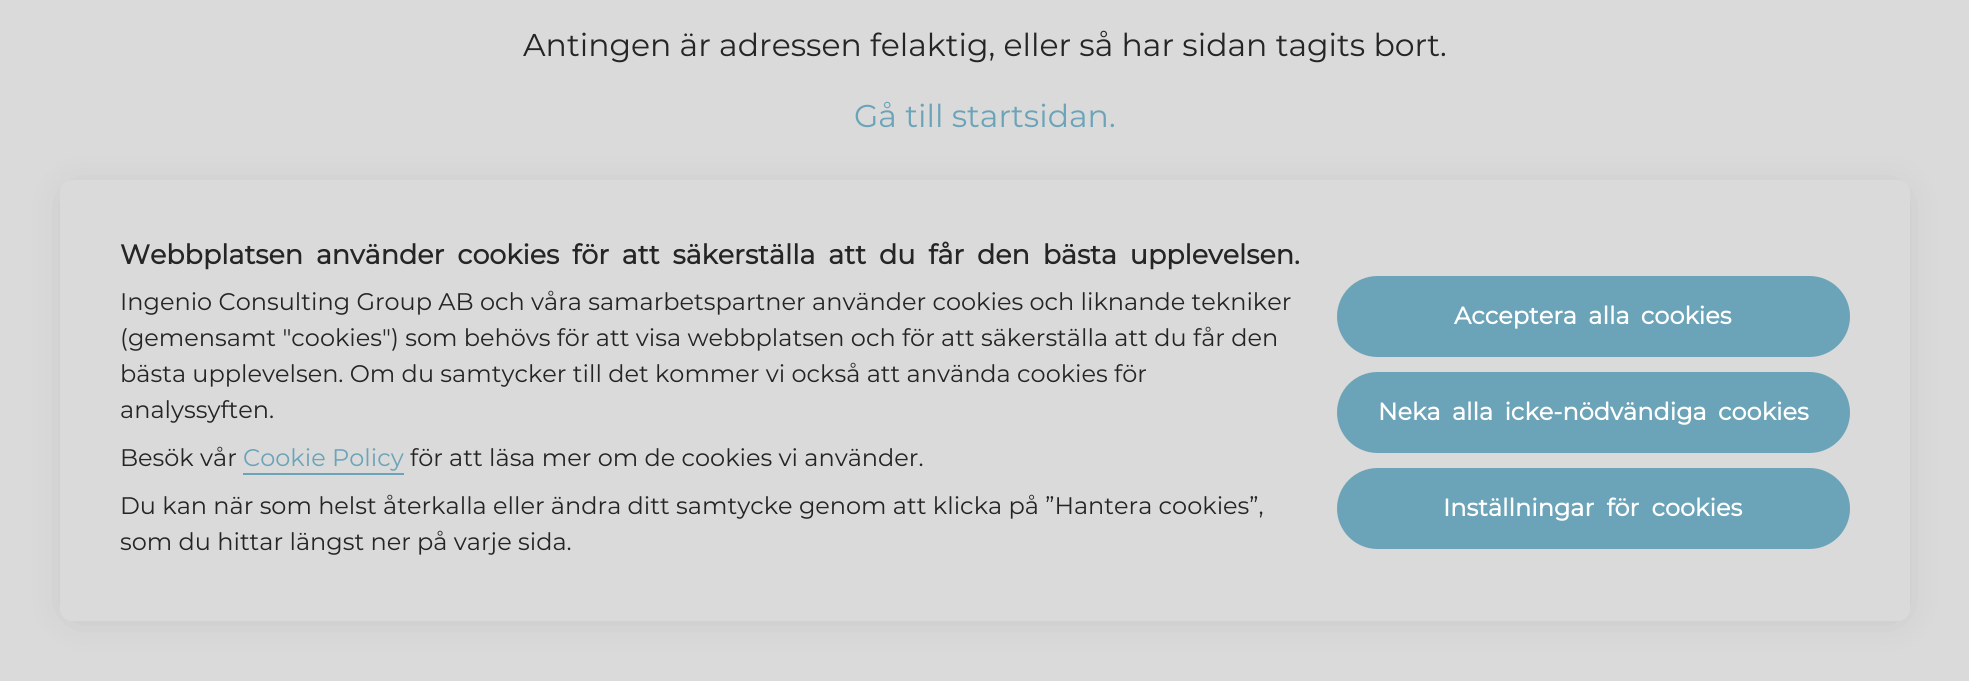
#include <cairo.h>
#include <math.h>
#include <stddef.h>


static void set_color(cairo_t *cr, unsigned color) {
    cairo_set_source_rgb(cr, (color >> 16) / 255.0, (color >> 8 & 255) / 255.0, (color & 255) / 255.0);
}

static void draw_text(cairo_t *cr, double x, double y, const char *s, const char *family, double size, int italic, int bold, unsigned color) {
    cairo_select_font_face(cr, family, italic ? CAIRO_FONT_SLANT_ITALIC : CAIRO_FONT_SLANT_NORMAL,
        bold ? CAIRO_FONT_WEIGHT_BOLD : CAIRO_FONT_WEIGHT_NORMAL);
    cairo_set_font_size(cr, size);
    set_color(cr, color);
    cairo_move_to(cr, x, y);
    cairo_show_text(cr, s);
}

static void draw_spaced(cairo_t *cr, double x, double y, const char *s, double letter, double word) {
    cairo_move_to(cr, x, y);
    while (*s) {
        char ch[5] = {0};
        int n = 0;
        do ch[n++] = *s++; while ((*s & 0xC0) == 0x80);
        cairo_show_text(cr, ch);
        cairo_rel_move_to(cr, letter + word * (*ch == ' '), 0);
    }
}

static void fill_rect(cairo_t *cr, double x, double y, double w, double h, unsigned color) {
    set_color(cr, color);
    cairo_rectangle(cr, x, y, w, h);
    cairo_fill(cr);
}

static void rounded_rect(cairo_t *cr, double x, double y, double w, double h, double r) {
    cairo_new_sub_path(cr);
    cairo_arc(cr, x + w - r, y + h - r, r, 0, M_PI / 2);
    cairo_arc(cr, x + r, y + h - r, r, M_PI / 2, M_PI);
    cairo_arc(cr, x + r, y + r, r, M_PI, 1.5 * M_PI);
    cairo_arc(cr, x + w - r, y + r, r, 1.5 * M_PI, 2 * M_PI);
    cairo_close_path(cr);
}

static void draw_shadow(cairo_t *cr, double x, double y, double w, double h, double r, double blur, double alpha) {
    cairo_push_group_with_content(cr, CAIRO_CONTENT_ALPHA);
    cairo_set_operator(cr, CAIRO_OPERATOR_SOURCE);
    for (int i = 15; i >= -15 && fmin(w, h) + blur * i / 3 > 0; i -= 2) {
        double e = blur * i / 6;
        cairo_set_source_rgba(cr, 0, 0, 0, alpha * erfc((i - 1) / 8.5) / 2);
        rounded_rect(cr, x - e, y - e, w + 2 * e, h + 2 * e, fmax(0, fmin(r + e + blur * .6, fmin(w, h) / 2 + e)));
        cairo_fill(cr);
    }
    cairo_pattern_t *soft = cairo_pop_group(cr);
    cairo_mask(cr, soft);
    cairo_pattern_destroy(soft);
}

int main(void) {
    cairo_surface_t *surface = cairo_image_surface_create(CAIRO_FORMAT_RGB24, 1969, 681);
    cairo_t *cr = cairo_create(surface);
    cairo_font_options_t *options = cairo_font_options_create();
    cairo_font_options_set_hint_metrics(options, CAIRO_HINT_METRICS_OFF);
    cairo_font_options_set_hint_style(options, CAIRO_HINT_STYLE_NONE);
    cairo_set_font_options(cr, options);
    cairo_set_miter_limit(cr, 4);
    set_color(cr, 0xDADADA);
    cairo_paint(cr);
    draw_text(cr, 523, 56, "Antingen är adressen felaktig, eller så har sidan tagits bort.", "Montserrat", 31.5, 0, 0, 0x252525);
    draw_text(cr, 854, 127, "Gå till startsidan.", "Montserrat", 31.5, 0, 0, 0x6BA4B8);
    set_color(cr, 0x000000);
    draw_shadow(cr, 75, 198, 1820, 411, 0, 20, 0.18);
    set_color(cr, 0xDADADA);
    rounded_rect(cr, 60, 180, 1850, 441, 12);
    cairo_fill(cr);
    cairo_select_font_face(cr, "Montserrat", CAIRO_FONT_SLANT_NORMAL, CAIRO_FONT_WEIGHT_BOLD);
    cairo_set_font_size(cr, 27);
    set_color(cr, 0x252525);
    draw_spaced(cr, 120, 264, "Webbplatsen använder cookies för att säkerställa att du får den bästa upplevelsen.", 0, 5.75);
    draw_text(cr, 120, 310, "Ingenio Consulting Group AB och våra samarbetspartner använder cookies och liknande tekniker", "Montserrat", 24, 0, 0, 0x252525);
    draw_text(cr, 120, 346, "(gemensamt \"cookies\") som behövs för att visa webbplatsen och för att säkerställa att du får den", "Montserrat", 24, 0, 0, 0x252525);
    draw_text(cr, 120, 382, "bästa upplevelsen. Om du samtycker till det kommer vi också att använda cookies för", "Montserrat", 24, 0, 0, 0x252525);
    draw_text(cr, 120, 418, "analyssyften.", "Montserrat", 24, 0, 0, 0x252525);
    draw_text(cr, 120, 466, "Besök vår", "Montserrat", 24, 0, 0, 0x252525);
    draw_text(cr, 243, 466, "Cookie Policy", "Montserrat", 24, 0, 0, 0x6BA4B8);
    fill_rect(cr, 243, 473, 161, 2, 0x6BA4B8);
    draw_text(cr, 410, 466, "för att läsa mer om de cookies vi använder.", "Montserrat", 24, 0, 0, 0x252525);
    draw_text(cr, 120, 514, "Du kan när som helst återkalla eller ändra ditt samtycke genom att klicka på ”Hantera cookies”,", "Montserrat", 24, 0, 0, 0x252525);
    draw_text(cr, 120, 550, "som du hittar längst ner på varje sida.", "Montserrat", 24, 0, 0, 0x252525);
    set_color(cr, 0x6BA4B8);
    rounded_rect(cr, 1337, 276, 513, 81, 40.5);
    cairo_fill(cr);
    cairo_select_font_face(cr, "Montserrat", CAIRO_FONT_SLANT_NORMAL, CAIRO_FONT_WEIGHT_BOLD);
    set_color(cr, 0xFFFFFF);
    draw_spaced(cr, 1454, 324, "Acceptera alla cookies", 0, 5);
    set_color(cr, 0x6BA4B8);
    rounded_rect(cr, 1337, 372, 513, 81, 40.5);
    cairo_fill(cr);
    set_color(cr, 0xFFFFFF);
    draw_spaced(cr, 1378, 420, "Neka alla icke-nödvändiga cookies", 0, 5);
    set_color(cr, 0x6BA4B8);
    rounded_rect(cr, 1337, 468, 513, 81, 40.5);
    cairo_fill(cr);
    set_color(cr, 0xFFFFFF);
    draw_spaced(cr, 1443, 516, "Inställningar för cookies", 0, 6);
    cairo_surface_write_to_png(surface, "output.png");
    cairo_font_options_destroy(options);
    cairo_destroy(cr);
    cairo_surface_destroy(surface);
    return 0;
}
